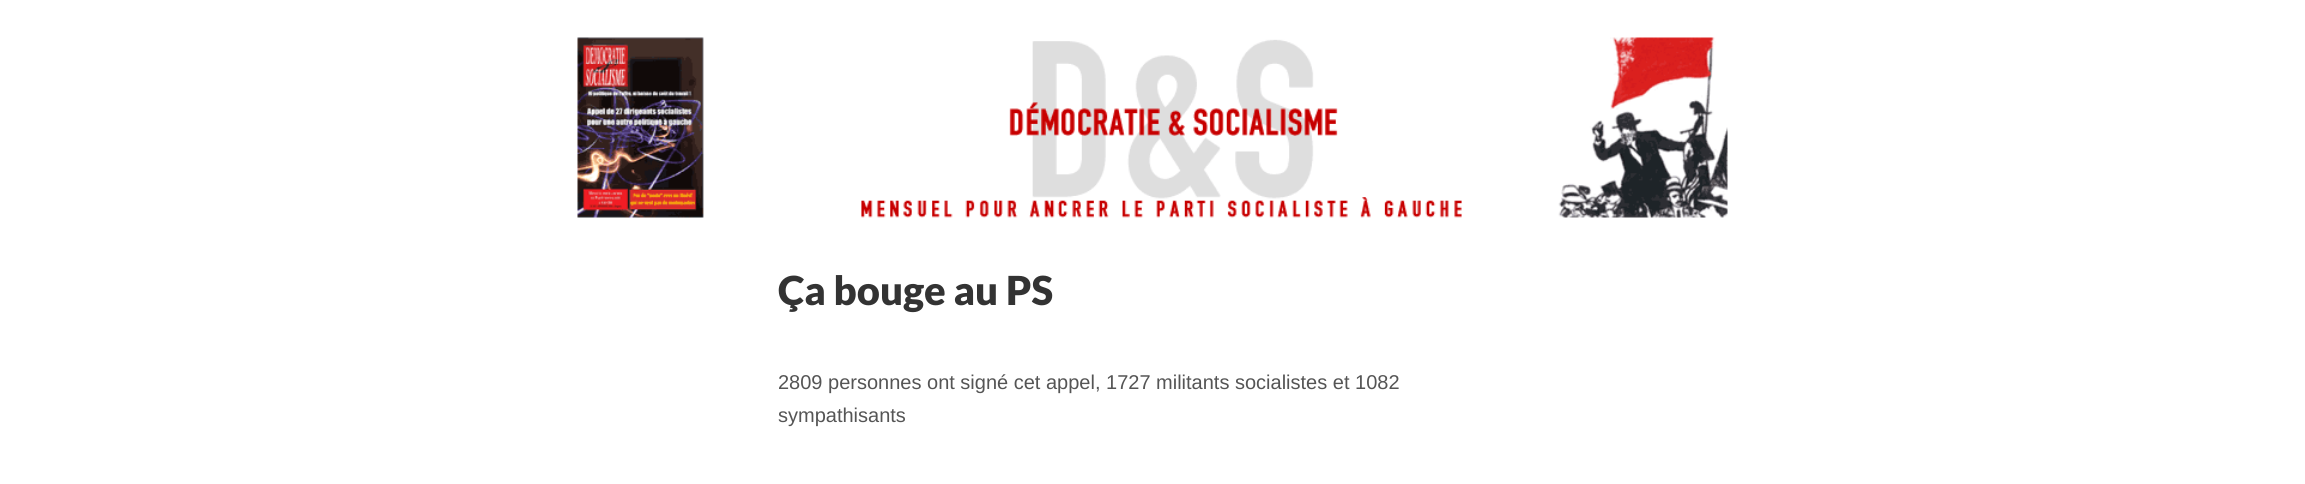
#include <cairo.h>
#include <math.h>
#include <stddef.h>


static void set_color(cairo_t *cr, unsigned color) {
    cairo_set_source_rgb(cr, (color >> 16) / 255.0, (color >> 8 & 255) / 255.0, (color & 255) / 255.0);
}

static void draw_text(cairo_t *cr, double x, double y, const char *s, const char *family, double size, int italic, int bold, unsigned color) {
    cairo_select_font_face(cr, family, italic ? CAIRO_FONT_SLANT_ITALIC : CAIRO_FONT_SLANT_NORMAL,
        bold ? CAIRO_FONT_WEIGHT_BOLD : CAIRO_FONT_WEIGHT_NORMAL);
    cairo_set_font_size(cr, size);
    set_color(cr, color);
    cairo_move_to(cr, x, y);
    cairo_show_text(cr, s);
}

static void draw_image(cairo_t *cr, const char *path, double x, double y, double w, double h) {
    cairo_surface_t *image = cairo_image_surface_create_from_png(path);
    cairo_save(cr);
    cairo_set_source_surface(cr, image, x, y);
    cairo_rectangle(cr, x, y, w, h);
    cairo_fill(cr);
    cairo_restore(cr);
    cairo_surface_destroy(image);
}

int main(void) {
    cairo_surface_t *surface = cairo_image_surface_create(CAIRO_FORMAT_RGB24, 2305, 484);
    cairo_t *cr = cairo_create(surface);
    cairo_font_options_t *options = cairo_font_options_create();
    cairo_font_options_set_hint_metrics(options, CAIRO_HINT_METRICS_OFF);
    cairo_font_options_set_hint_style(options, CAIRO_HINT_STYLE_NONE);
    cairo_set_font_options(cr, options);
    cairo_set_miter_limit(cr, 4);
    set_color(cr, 0xFFFFFF);
    cairo_paint(cr);
    draw_image(cr, "assets/img1.png", 577, 37, 1151, 181);
    draw_text(cr, 778, 305, "Ça bouge au PS", "Lato Black", 40, 0, 0, 0x333333);
    draw_text(cr, 778, 389, "2809 personnes ont signé cet appel, 1727 militants socialistes et 1082", "Liberation Sans", 20, 0, 0, 0x555555);
    draw_text(cr, 778, 422, "sympathisants", "Liberation Sans", 20, 0, 0, 0x555555);
    cairo_surface_write_to_png(surface, "output.png");
    cairo_font_options_destroy(options);
    cairo_destroy(cr);
    cairo_surface_destroy(surface);
    return 0;
}
